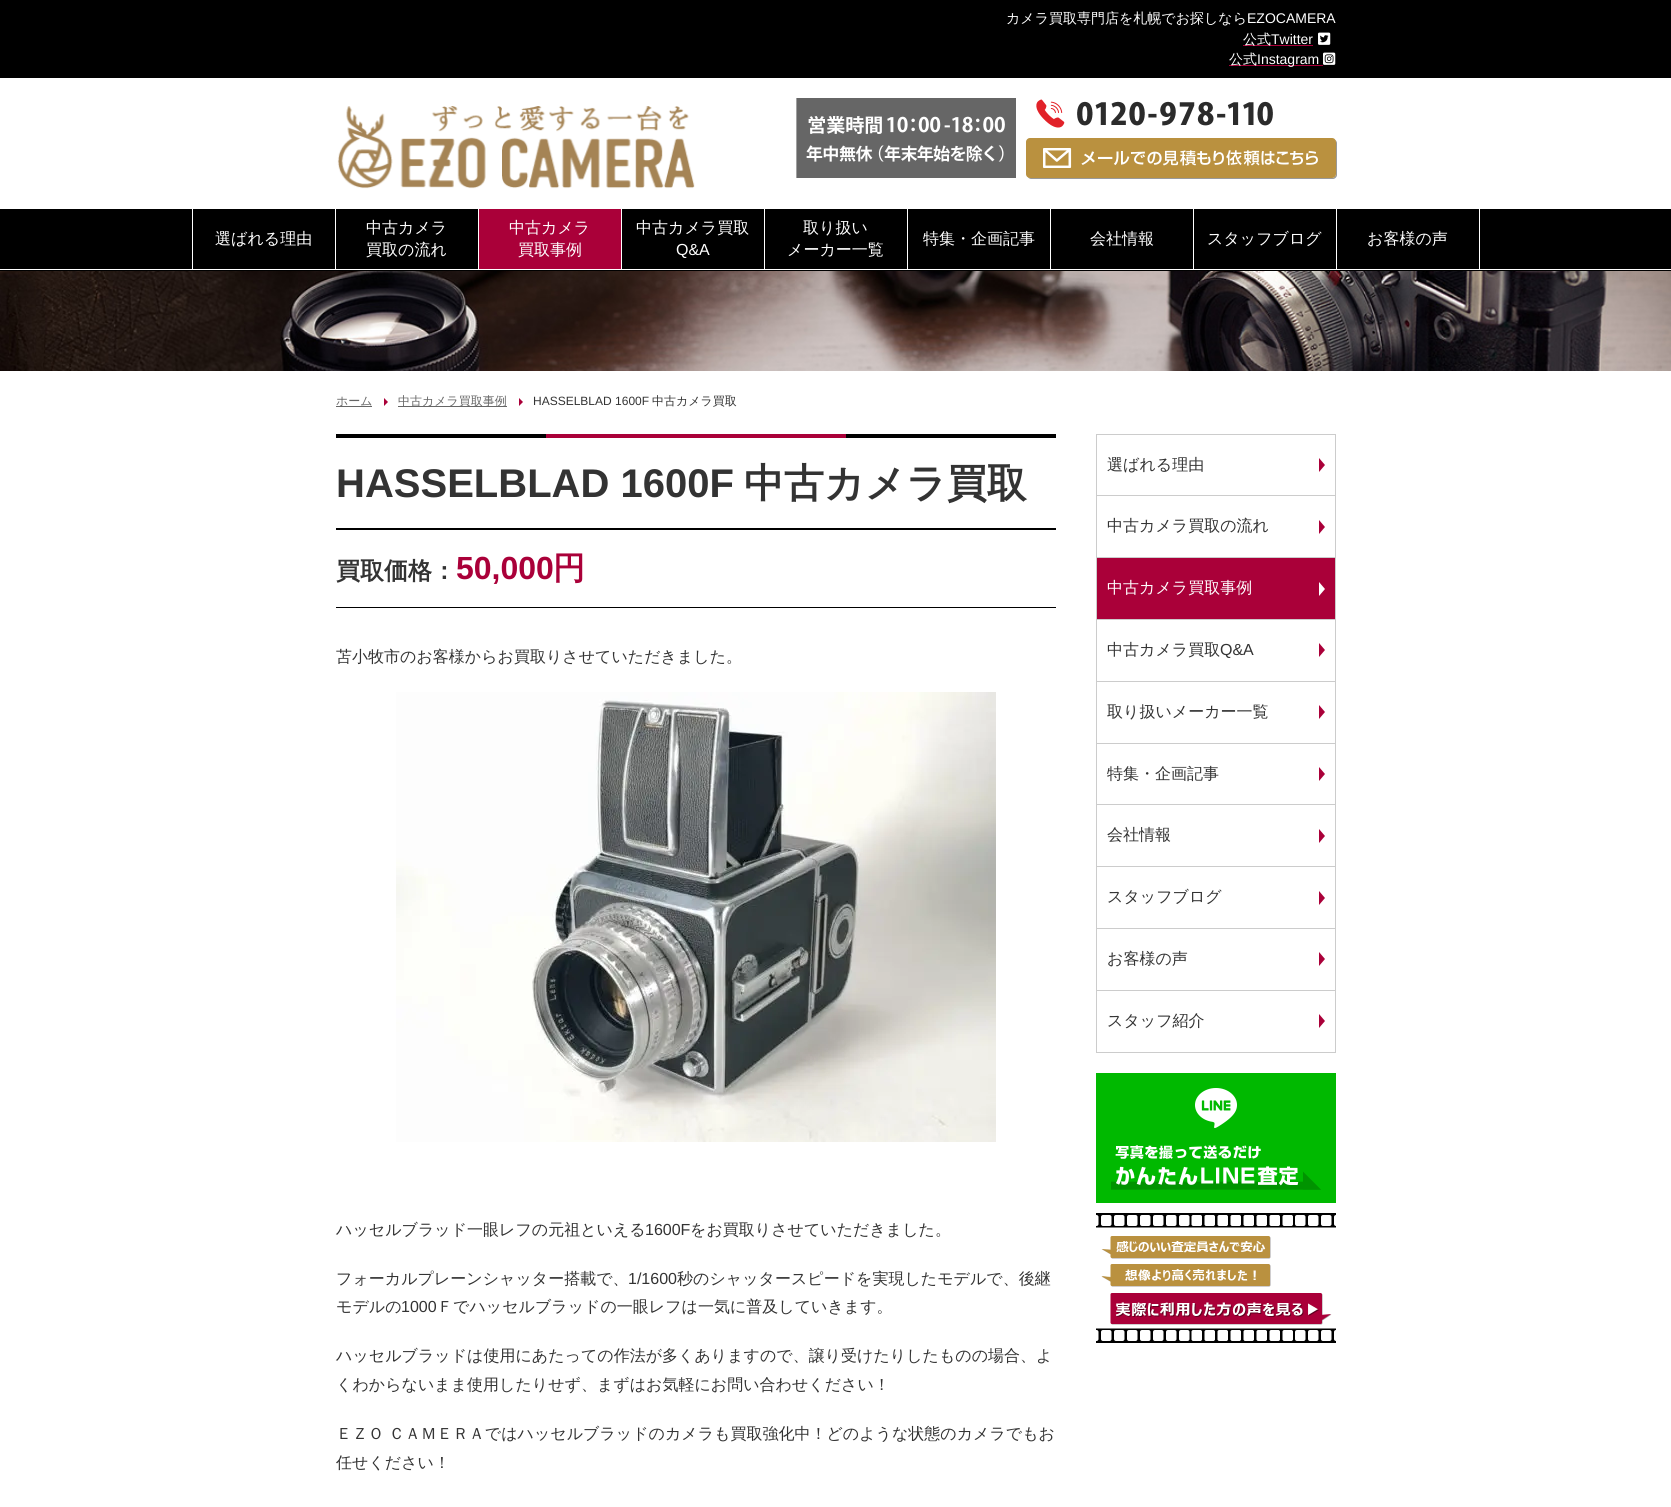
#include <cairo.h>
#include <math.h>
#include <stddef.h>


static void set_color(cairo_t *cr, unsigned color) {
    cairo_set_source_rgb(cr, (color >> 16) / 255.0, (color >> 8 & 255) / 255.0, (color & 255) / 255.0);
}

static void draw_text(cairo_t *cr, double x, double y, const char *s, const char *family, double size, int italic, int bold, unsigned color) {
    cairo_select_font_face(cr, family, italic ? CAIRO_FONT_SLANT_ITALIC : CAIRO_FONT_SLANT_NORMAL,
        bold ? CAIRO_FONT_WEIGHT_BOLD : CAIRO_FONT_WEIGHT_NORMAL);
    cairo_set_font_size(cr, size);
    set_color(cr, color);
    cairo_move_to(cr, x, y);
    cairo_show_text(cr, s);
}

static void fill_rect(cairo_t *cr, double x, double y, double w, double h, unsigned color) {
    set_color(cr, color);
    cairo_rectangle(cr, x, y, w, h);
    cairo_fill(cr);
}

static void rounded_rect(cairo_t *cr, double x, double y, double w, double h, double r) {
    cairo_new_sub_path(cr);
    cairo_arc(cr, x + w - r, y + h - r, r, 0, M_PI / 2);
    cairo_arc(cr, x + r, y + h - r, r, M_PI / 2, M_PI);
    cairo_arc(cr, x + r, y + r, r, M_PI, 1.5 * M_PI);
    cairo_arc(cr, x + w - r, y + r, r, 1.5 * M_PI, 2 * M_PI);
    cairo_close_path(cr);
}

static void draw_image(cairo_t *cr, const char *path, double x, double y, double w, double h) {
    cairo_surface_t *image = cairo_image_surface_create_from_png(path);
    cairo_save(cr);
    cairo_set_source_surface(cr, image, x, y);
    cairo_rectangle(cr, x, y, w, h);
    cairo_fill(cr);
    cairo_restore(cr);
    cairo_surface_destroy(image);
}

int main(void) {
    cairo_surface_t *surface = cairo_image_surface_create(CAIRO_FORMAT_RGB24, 1671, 1507);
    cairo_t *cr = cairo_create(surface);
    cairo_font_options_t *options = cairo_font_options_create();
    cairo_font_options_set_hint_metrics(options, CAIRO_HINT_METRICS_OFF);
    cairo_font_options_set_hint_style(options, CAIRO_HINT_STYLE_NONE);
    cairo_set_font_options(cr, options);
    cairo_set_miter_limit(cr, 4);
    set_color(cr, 0xFFFFFF);
    cairo_paint(cr);
    fill_rect(cr, 0, 0, 1671, 78, 0x000000);
    draw_text(cr, 1006, 23, "カメラ買取専門店を札幌でお探しなら", "WenQuanYi Zen Hei Medium", 14, 0, 0, 0xFFFFFF);
    draw_text(cr, 1247, 23, "EZOCAMERA", "Liberation Sans", 14, 0, 0, 0xFFFFFF);
    fill_rect(cr, 1243, 45, 70, 1, 0xAA0039);
    draw_text(cr, 1243, 44, "公式", "WenQuanYi Zen Hei Medium", 14, 0, 0, 0xFFFFFF);
    draw_text(cr, 1271, 44, "Twitter", "Liberation Sans", 14, 0, 0, 0xFFFFFF);
    draw_image(cr, "assets/img1.png", 1318, 32, 13, 13);
    fill_rect(cr, 1229, 65, 94, 1, 0xAA0039);
    draw_text(cr, 1229, 64, "公式", "WenQuanYi Zen Hei Medium", 14, 0, 0, 0xFFFFFF);
    draw_text(cr, 1257, 64, "Instagram", "Liberation Sans", 14, 0, 0, 0xFFFFFF);
    draw_image(cr, "assets/img2.png", 1323, 52, 13, 13);
    draw_image(cr, "assets/img3.png", 337, 106, 358, 83);
    draw_image(cr, "assets/img4.png", 796, 98, 220, 80);
    draw_image(cr, "assets/img5.png", 1036, 99, 237, 29);
    set_color(cr, 0x999999);
    cairo_new_path(cr);
    cairo_move_to(cr, 1028, 177);
    cairo_curve_to(cr, 1028, 178, 1030, 179, 1031, 179);
    cairo_line_to(cr, 1333, 179);
    cairo_curve_to(cr, 1335, 179, 1337, 177, 1337, 175);
    cairo_line_to(cr, 1337, 143);
    cairo_curve_to(cr, 1337, 142, 1336, 140, 1335, 140);
    cairo_line_to(cr, 1336, 142);
    cairo_line_to(cr, 1336, 174);
    cairo_curve_to(cr, 1336, 176, 1334, 178, 1332, 178);
    cairo_line_to(cr, 1030, 178);
    cairo_close_path(cr);
    cairo_fill(cr);
    set_color(cr, 0xBA913F);
    rounded_rect(cr, 1026, 138, 310, 40, 4);
    cairo_fill(cr);
    draw_image(cr, "assets/img6.png", 1043, 148, 275, 20);
    fill_rect(cr, 0, 209, 1671, 60, 0x000000);
    fill_rect(cr, 192, 209, 1, 60, 0xFFFFFF);
    fill_rect(cr, 335, 209, 1, 60, 0xFFFFFF);
    draw_text(cr, 215, 244, "選ばれる理由", "WenQuanYi Zen Hei Medium", 16, 0, 0, 0xFFFFFF);
    fill_rect(cr, 478, 209, 1, 60, 0xFFFFFF);
    draw_text(cr, 366, 233, "中古カメラ", "WenQuanYi Zen Hei Medium", 16, 0, 0, 0xFFFFFF);
    draw_text(cr, 366, 255, "買取の流れ", "WenQuanYi Zen Hei Medium", 16, 0, 0, 0xFFFFFF);
    fill_rect(cr, 621, 209, 1, 60, 0xFFFFFF);
    fill_rect(cr, 479, 209, 142, 60, 0xAA0039);
    draw_text(cr, 509, 233, "中古カメラ", "WenQuanYi Zen Hei Medium", 16, 0, 0, 0xFFFFFF);
    draw_text(cr, 518, 255, "買取事例", "WenQuanYi Zen Hei Medium", 16, 0, 0, 0xFFFFFF);
    fill_rect(cr, 764, 209, 1, 60, 0xFFFFFF);
    draw_text(cr, 636, 233, "中古カメラ買取", "WenQuanYi Zen Hei Medium", 16, 0, 0, 0xFFFFFF);
    draw_text(cr, 676, 255, "Q&A", "Liberation Sans", 16, 0, 0, 0xFFFFFF);
    fill_rect(cr, 907, 209, 1, 60, 0xFFFFFF);
    draw_text(cr, 803, 233, "取り扱い", "WenQuanYi Zen Hei Medium", 16, 0, 0, 0xFFFFFF);
    draw_text(cr, 787, 255, "メーカー一覧", "WenQuanYi Zen Hei Medium", 16, 0, 0, 0xFFFFFF);
    fill_rect(cr, 1050, 209, 1, 60, 0xFFFFFF);
    draw_text(cr, 923, 244, "特集・企画記事", "WenQuanYi Zen Hei Medium", 16, 0, 0, 0xFFFFFF);
    fill_rect(cr, 1193, 209, 1, 60, 0xFFFFFF);
    draw_text(cr, 1090, 244, "会社情報", "WenQuanYi Zen Hei Medium", 16, 0, 0, 0xFFFFFF);
    fill_rect(cr, 1336, 209, 1, 60, 0xFFFFFF);
    draw_text(cr, 1207, 244, "スタッフブログ", "WenQuanYi Zen Hei Medium", 16, 0, 0, 0xFFFFFF);
    fill_rect(cr, 1479, 209, 1, 60, 0xFFFFFF);
    draw_text(cr, 1367, 244, "お客様の声", "WenQuanYi Zen Hei Medium", 16, 0, 0, 0xFFFFFF);
    fill_rect(cr, 0, 270, 1671, 1, 0x000000);
    draw_image(cr, "assets/img7.png", 0, 271, 1671, 100);
    fill_rect(cr, 336, 406, 36, 1, 0x666666);
    draw_text(cr, 336, 405, "ホーム", "WenQuanYi Zen Hei Medium", 12, 0, 0, 0x666666);
    set_color(cr, 0xAA0039);
    cairo_new_path(cr);
    cairo_move_to(cr, 384, 406);
    cairo_line_to(cr, 384, 398);
    cairo_line_to(cr, 388, 402);
    cairo_close_path(cr);
    cairo_fill(cr);
    fill_rect(cr, 398, 406, 109, 1, 0x666666);
    draw_text(cr, 398, 405, "中古カメラ買取事例", "WenQuanYi Zen Hei Medium", 12, 0, 0, 0x666666);
    set_color(cr, 0xAA0039);
    cairo_new_path(cr);
    cairo_move_to(cr, 519, 406);
    cairo_line_to(cr, 519, 398);
    cairo_line_to(cr, 523, 402);
    cairo_close_path(cr);
    cairo_fill(cr);
    draw_text(cr, 533, 405, "HASSELBLAD 1600F", "Liberation Sans", 12, 0, 0, 0x333333);
    draw_text(cr, 652, 405, "中古カメラ買取", "WenQuanYi Zen Hei Medium", 12, 0, 0, 0x333333);
    fill_rect(cr, 336, 434, 720, 4, 0x000000);
    fill_rect(cr, 336, 528, 720, 2, 0x000000);
    fill_rect(cr, 546, 434, 300, 4, 0xAA0039);
    draw_text(cr, 336, 497, "HASSELBLAD 1600F", "Liberation Sans", 40, 0, 1, 0x333333);
    draw_text(cr, 744, 497, "中古カメラ買取", "WenQuanYi Zen Hei", 40, 0, 1, 0x333333);
    fill_rect(cr, 336, 607, 720, 1, 0x000000);
    draw_text(cr, 336, 579, "買取価格：", "WenQuanYi Zen Hei", 24, 0, 1, 0x333333);
    draw_text(cr, 456, 579, "50,000", "Liberation Sans", 32, 0, 1, 0xAA0039);
    draw_text(cr, 553, 579, "円", "WenQuanYi Zen Hei", 32, 0, 1, 0xAA0039);
    draw_text(cr, 336, 662, "苫小牧市のお客様からお買取りさせていただきました。", "WenQuanYi Zen Hei Medium", 16, 0, 0, 0x333333);
    draw_image(cr, "assets/img8.png", 396, 692, 600, 450);
    draw_text(cr, 336, 1235, "ハッセルブラッド一眼レフの元祖といえる", "WenQuanYi Zen Hei Medium", 16, 0, 0, 0x333333);
    draw_text(cr, 645, 1235, "1600F", "Liberation Sans", 16, 0, 0, 0x333333);
    draw_text(cr, 690, 1235, "をお買取りさせていただきました。", "WenQuanYi Zen Hei Medium", 16, 0, 0, 0x333333);
    draw_text(cr, 336, 1284, "フォーカルプレーンシャッター搭載で、", "WenQuanYi Zen Hei Medium", 16, 0, 0, 0x333333);
    draw_text(cr, 628, 1284, "1/1600", "Liberation Sans", 16, 0, 0, 0x333333);
    draw_text(cr, 677, 1284, "秒のシャッタースピードを実現したモデルで、後継", "WenQuanYi Zen Hei Medium", 16, 0, 0, 0x333333);
    draw_text(cr, 336, 1312, "モデルの", "WenQuanYi Zen Hei Medium", 16, 0, 0, 0x333333);
    draw_text(cr, 401, 1312, "1000", "Liberation Sans", 16, 0, 0, 0x333333);
    draw_text(cr, 437, 1312, "Ｆでハッセルブラッドの一眼レフは一気に普及していきます。", "WenQuanYi Zen Hei Medium", 16, 0, 0, 0x333333);
    draw_text(cr, 336, 1361, "ハッセルブラッドは使用にあたっての作法が多くありますので、譲り受けたりしたものの場合、よ", "WenQuanYi Zen Hei Medium", 16, 0, 0, 0x333333);
    draw_text(cr, 336, 1390, "くわからないまま使用したりせず、まずはお気軽にお問い合わせください！", "WenQuanYi Zen Hei Medium", 16, 0, 0, 0x333333);
    draw_text(cr, 336, 1439, "ＥＺＯ ＣＡＭＥＲＡではハッセルブラッドのカメラも買取強化中！どのような状態のカメラでもお", "WenQuanYi Zen Hei Medium", 16, 0, 0, 0x333333);
    draw_text(cr, 336, 1468, "任せください！", "WenQuanYi Zen Hei Medium", 16, 0, 0, 0x333333);
    cairo_rectangle(cr, 1096.5, 434.5, 239, 618);
    set_color(cr, 0xCCCCCC);
    cairo_set_line_width(cr, 1);
    cairo_stroke(cr);
    fill_rect(cr, 1097, 495, 238, 1, 0xCCCCCC);
    draw_text(cr, 1107, 470, "選ばれる理由", "WenQuanYi Zen Hei Medium", 16, 0, 0, 0x333333);
    set_color(cr, 0xAA0039);
    cairo_new_path(cr);
    cairo_move_to(cr, 1319, 472);
    cairo_line_to(cr, 1319, 458);
    cairo_line_to(cr, 1325, 465);
    cairo_close_path(cr);
    cairo_fill(cr);
    fill_rect(cr, 1097, 557, 238, 1, 0xCCCCCC);
    draw_text(cr, 1107, 531, "中古カメラ買取の流れ", "WenQuanYi Zen Hei Medium", 16, 0, 0, 0x333333);
    set_color(cr, 0xAA0039);
    cairo_new_path(cr);
    cairo_move_to(cr, 1319, 534);
    cairo_line_to(cr, 1319, 520);
    cairo_line_to(cr, 1325, 527);
    cairo_close_path(cr);
    cairo_fill(cr);
    fill_rect(cr, 1097, 619, 238, 1, 0xCCCCCC);
    fill_rect(cr, 1097, 558, 238, 61, 0xAA0039);
    draw_text(cr, 1107, 593, "中古カメラ買取事例", "WenQuanYi Zen Hei Medium", 16, 0, 0, 0xFFFFFF);
    cairo_new_path(cr);
    cairo_move_to(cr, 1319, 596);
    cairo_line_to(cr, 1319, 582);
    cairo_line_to(cr, 1325, 589);
    cairo_close_path(cr);
    cairo_fill(cr);
    fill_rect(cr, 1097, 681, 238, 1, 0xCCCCCC);
    draw_text(cr, 1107, 655, "中古カメラ買取", "WenQuanYi Zen Hei Medium", 16, 0, 0, 0x333333);
    draw_text(cr, 1220, 655, "Q&A", "Liberation Sans", 16, 0, 0, 0x333333);
    set_color(cr, 0xAA0039);
    cairo_new_path(cr);
    cairo_move_to(cr, 1319, 657);
    cairo_line_to(cr, 1319, 643);
    cairo_line_to(cr, 1325, 650);
    cairo_close_path(cr);
    cairo_fill(cr);
    fill_rect(cr, 1097, 743, 238, 1, 0xCCCCCC);
    draw_text(cr, 1107, 717, "取り扱いメーカー一覧", "WenQuanYi Zen Hei Medium", 16, 0, 0, 0x333333);
    set_color(cr, 0xAA0039);
    cairo_new_path(cr);
    cairo_move_to(cr, 1319, 719);
    cairo_line_to(cr, 1319, 705);
    cairo_line_to(cr, 1325, 712);
    cairo_close_path(cr);
    cairo_fill(cr);
    fill_rect(cr, 1097, 804, 238, 1, 0xCCCCCC);
    draw_text(cr, 1107, 779, "特集・企画記事", "WenQuanYi Zen Hei Medium", 16, 0, 0, 0x333333);
    set_color(cr, 0xAA0039);
    cairo_new_path(cr);
    cairo_move_to(cr, 1319, 781);
    cairo_line_to(cr, 1319, 767);
    cairo_line_to(cr, 1325, 774);
    cairo_close_path(cr);
    cairo_fill(cr);
    fill_rect(cr, 1097, 866, 238, 1, 0xCCCCCC);
    draw_text(cr, 1107, 840, "会社情報", "WenQuanYi Zen Hei Medium", 16, 0, 0, 0x333333);
    set_color(cr, 0xAA0039);
    cairo_new_path(cr);
    cairo_move_to(cr, 1319, 843);
    cairo_line_to(cr, 1319, 829);
    cairo_line_to(cr, 1325, 836);
    cairo_close_path(cr);
    cairo_fill(cr);
    fill_rect(cr, 1097, 928, 238, 1, 0xCCCCCC);
    draw_text(cr, 1107, 902, "スタッフブログ", "WenQuanYi Zen Hei Medium", 16, 0, 0, 0x333333);
    set_color(cr, 0xAA0039);
    cairo_new_path(cr);
    cairo_move_to(cr, 1319, 905);
    cairo_line_to(cr, 1319, 891);
    cairo_line_to(cr, 1325, 898);
    cairo_close_path(cr);
    cairo_fill(cr);
    fill_rect(cr, 1097, 990, 238, 1, 0xCCCCCC);
    draw_text(cr, 1107, 964, "お客様の声", "WenQuanYi Zen Hei Medium", 16, 0, 0, 0x333333);
    set_color(cr, 0xAA0039);
    cairo_new_path(cr);
    cairo_move_to(cr, 1319, 966);
    cairo_line_to(cr, 1319, 952);
    cairo_line_to(cr, 1325, 959);
    cairo_close_path(cr);
    cairo_fill(cr);
    draw_text(cr, 1107, 1026, "スタッフ紹介", "WenQuanYi Zen Hei Medium", 16, 0, 0, 0x333333);
    set_color(cr, 0xAA0039);
    cairo_new_path(cr);
    cairo_move_to(cr, 1319, 1028);
    cairo_line_to(cr, 1319, 1014);
    cairo_line_to(cr, 1325, 1021);
    cairo_close_path(cr);
    cairo_fill(cr);
    draw_image(cr, "assets/img9.png", 1096, 1073, 240, 130);
    draw_image(cr, "assets/img10.png", 1096, 1213, 240, 130);
    cairo_surface_write_to_png(surface, "output.png");
    cairo_font_options_destroy(options);
    cairo_destroy(cr);
    cairo_surface_destroy(surface);
    return 0;
}
